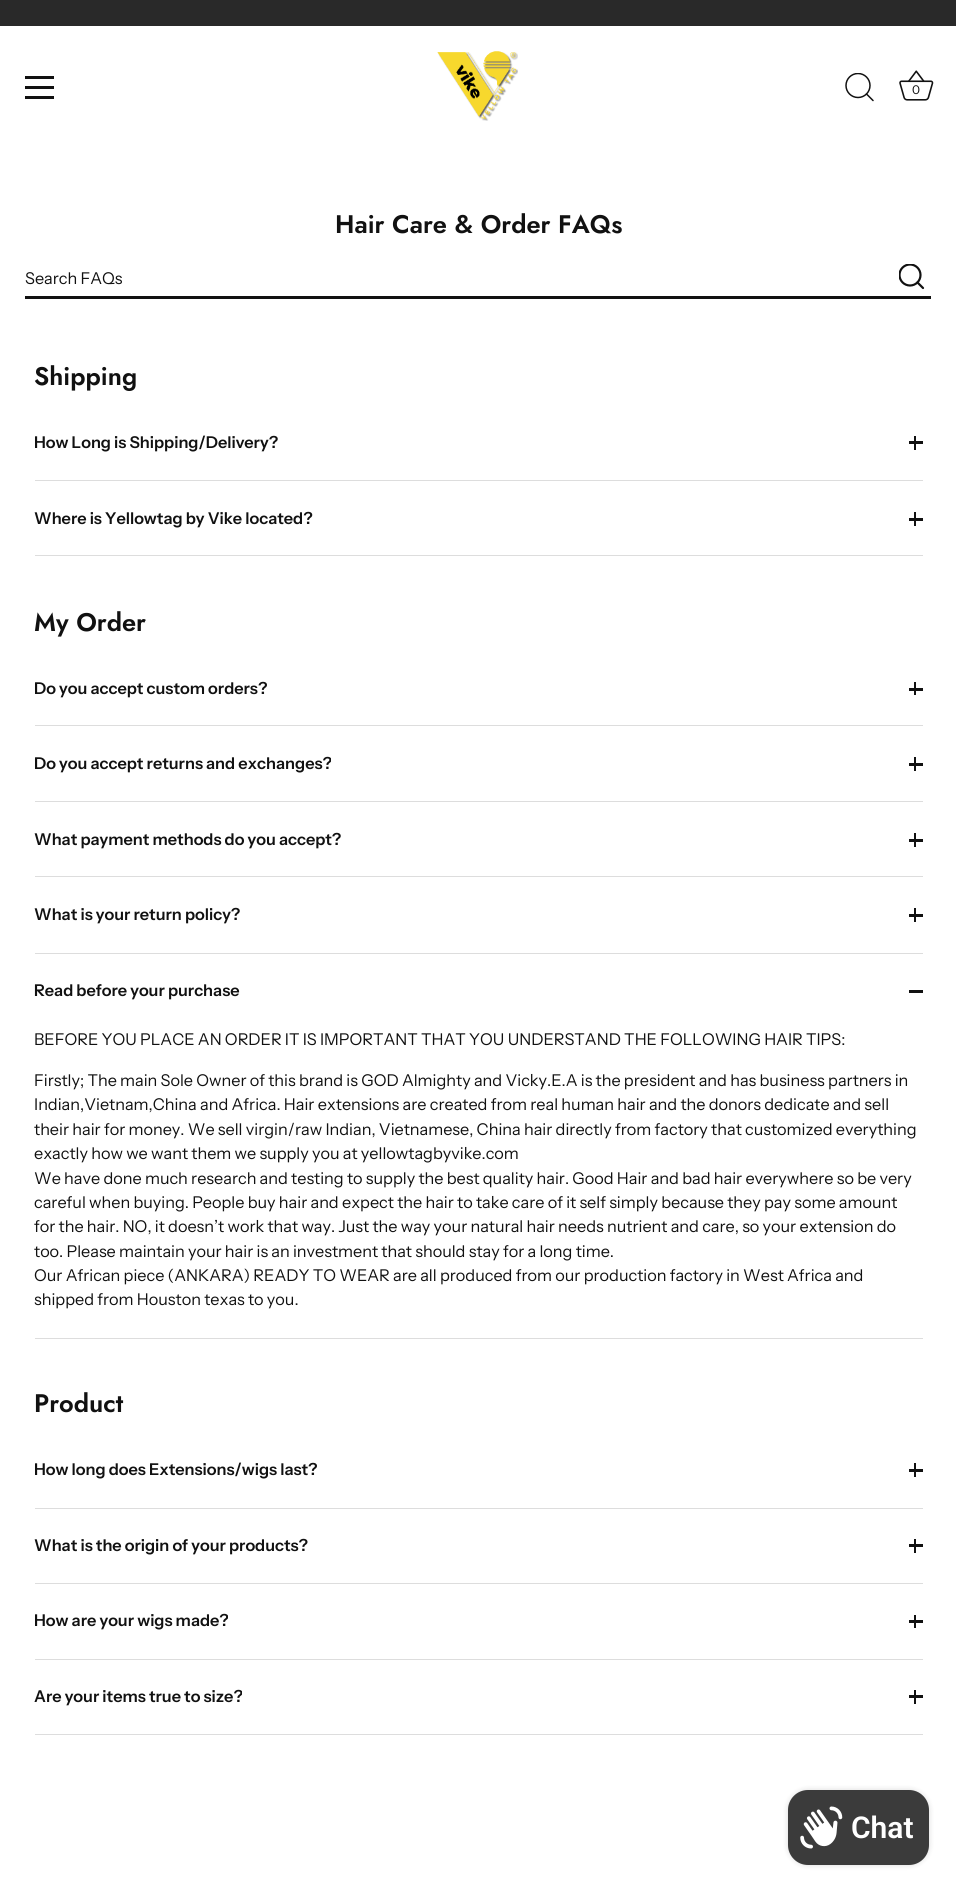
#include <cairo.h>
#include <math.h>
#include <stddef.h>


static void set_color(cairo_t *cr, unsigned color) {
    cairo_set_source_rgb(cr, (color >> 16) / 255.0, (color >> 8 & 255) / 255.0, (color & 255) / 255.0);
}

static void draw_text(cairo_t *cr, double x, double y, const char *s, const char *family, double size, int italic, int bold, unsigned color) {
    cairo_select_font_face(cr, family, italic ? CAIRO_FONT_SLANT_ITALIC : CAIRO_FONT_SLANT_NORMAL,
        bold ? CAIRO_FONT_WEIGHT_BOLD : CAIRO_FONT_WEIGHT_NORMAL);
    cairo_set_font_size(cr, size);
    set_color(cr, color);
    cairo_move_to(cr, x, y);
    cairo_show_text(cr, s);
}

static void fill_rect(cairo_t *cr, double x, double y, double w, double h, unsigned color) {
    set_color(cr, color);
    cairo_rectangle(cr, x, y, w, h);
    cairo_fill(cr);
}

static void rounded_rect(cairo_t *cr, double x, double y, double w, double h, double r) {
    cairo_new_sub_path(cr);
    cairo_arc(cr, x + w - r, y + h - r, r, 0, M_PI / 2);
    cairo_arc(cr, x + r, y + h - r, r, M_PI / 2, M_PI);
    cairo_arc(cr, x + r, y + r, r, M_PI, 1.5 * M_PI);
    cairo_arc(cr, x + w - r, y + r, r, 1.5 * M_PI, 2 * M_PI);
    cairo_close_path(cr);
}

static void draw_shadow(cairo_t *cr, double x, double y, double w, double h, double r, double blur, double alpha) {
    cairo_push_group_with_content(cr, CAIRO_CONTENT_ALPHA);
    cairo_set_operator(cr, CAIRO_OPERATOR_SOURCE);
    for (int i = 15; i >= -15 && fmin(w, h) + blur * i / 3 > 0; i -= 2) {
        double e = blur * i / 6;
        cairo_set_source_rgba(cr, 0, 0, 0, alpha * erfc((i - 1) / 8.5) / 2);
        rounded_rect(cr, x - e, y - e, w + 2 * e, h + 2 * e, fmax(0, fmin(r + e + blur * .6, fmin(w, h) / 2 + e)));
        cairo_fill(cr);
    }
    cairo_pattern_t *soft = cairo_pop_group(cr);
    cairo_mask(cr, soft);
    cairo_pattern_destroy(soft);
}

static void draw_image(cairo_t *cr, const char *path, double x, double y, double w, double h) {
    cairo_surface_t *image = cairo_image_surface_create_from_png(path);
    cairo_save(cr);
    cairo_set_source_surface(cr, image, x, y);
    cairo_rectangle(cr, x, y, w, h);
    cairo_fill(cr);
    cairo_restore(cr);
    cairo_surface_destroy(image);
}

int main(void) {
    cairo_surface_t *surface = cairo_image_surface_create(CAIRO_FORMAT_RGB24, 956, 1891);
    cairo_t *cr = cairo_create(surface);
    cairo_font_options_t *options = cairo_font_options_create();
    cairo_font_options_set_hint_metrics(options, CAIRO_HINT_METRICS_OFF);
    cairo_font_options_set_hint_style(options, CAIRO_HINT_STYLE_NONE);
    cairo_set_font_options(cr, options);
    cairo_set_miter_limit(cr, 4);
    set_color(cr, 0xFFFFFF);
    cairo_paint(cr);
    fill_rect(cr, 0, 0, 956, 26, 0x292929);
    fill_rect(cr, 25, 76, 29, 3, 0x111111);
    fill_rect(cr, 25, 86, 29, 3, 0x111111);
    fill_rect(cr, 25, 96, 29, 3, 0x111111);
    draw_image(cr, "assets/img1.png", 437, 51, 81, 70);
    cairo_save(cr);
    cairo_rectangle(cr, 845, 73, 30, 30);
    cairo_clip(cr);
    cairo_arc(cr, 858, 85.5, 12, 0, 2 * M_PI);
    cairo_set_line_width(cr, 1.5);
    cairo_stroke(cr);
    cairo_restore(cr);
    cairo_new_path(cr);
    cairo_move_to(cr, 873, 100.5);
    cairo_line_to(cr, 866.5, 94);
    cairo_set_line_width(cr, 1.5);
    cairo_set_line_cap(cr, CAIRO_LINE_CAP_ROUND);
    cairo_set_line_join(cr, CAIRO_LINE_JOIN_ROUND);
    cairo_stroke(cr);
    draw_image(cr, "assets/img2.png", 899, 70, 35, 31);
    draw_text(cr, 912, 94, "0", "Instrument Sans", 12, 0, 0, 0x111111);
    draw_text(cr, 335, 233, "Hair Care & Order FAQs", "Jost SemiBold", 25.4, 0, 0, 0x111111);
    draw_text(cr, 25, 284, "Search FAQs", "Instrument Sans", 16.25, 0, 0, 0x111111);
    cairo_save(cr);
    cairo_rectangle(cr, 899, 264, 26, 26);
    cairo_clip(cr);
    cairo_arc(cr, 910, 275, 10.5, 0, 2 * M_PI);
    cairo_set_line_width(cr, 2.2);
    cairo_set_line_cap(cr, CAIRO_LINE_CAP_BUTT);
    cairo_set_line_join(cr, CAIRO_LINE_JOIN_MITER);
    cairo_stroke(cr);
    cairo_restore(cr);
    cairo_new_path(cr);
    cairo_move_to(cr, 923, 288);
    cairo_line_to(cr, 917.5, 282.5);
    cairo_set_line_width(cr, 2.2);
    cairo_stroke(cr);
    fill_rect(cr, 25, 296, 906, 3, 0x111111);
    draw_text(cr, 34, 385, "Shipping", "Jost SemiBold", 25.4, 0, 0, 0x111111);
    fill_rect(cr, 35, 480, 888, 1, 0xDDDDDD);
    draw_text(cr, 34, 448, "How Long is Shipping/Delivery?", "Instrument Sans SemiBold", 16.25, 0, 0, 0x111111);
    fill_rect(cr, 914, 436, 2, 14, 0x111111);
    fill_rect(cr, 909, 441, 14, 3, 0x111111);
    fill_rect(cr, 35, 555, 888, 1, 0xDDDDDD);
    draw_text(cr, 34, 524, "Where is Yellowtag by Vike located?", "Instrument Sans SemiBold", 16.25, 0, 0, 0x111111);
    fill_rect(cr, 914, 512, 2, 14, 0x111111);
    fill_rect(cr, 909, 518, 14, 3, 0x111111);
    draw_text(cr, 34, 631, "My Order", "Jost SemiBold", 25.4, 0, 0, 0x111111);
    fill_rect(cr, 35, 725, 888, 1, 0xDDDDDD);
    draw_text(cr, 34, 694, "Do you accept custom orders?", "Instrument Sans SemiBold", 16.25, 0, 0, 0x111111);
    fill_rect(cr, 914, 682, 2, 13, 0x111111);
    fill_rect(cr, 909, 688, 14, 3, 0x111111);
    fill_rect(cr, 35, 801, 888, 1, 0xDDDDDD);
    draw_text(cr, 34, 769, "Do you accept returns and exchanges?", "Instrument Sans SemiBold", 16.25, 0, 0, 0x111111);
    fill_rect(cr, 914, 757, 2, 14, 0x111111);
    fill_rect(cr, 909, 763, 14, 3, 0x111111);
    fill_rect(cr, 35, 876, 888, 1, 0xDDDDDD);
    draw_text(cr, 34, 845, "What payment methods do you accept?", "Instrument Sans SemiBold", 16.25, 0, 0, 0x111111);
    fill_rect(cr, 914, 833, 2, 14, 0x111111);
    fill_rect(cr, 909, 839, 14, 3, 0x111111);
    fill_rect(cr, 35, 953, 888, 1, 0xDDDDDD);
    draw_text(cr, 34, 920, "What is your return policy?", "Instrument Sans SemiBold", 16.25, 0, 0, 0x111111);
    fill_rect(cr, 914, 908, 2, 14, 0x111111);
    fill_rect(cr, 909, 914, 14, 3, 0x111111);
    fill_rect(cr, 35, 1338, 888, 1, 0xDDDDDD);
    draw_text(cr, 34, 996, "Read before your purchase", "Instrument Sans SemiBold", 16.25, 0, 0, 0x111111);
    fill_rect(cr, 909, 990, 14, 3, 0x111111);
    draw_text(cr, 34, 1045, "BEFORE YOU PLACE AN ORDER IT IS IMPORTANT THAT YOU UNDERSTAND THE FOLLOWING HAIR TIPS:", "Instrument Sans", 16.25, 0, 0, 0x111111);
    draw_text(cr, 34, 1086, "Firstly; The main Sole Owner of this brand is GOD Almighty and Vicky.E.A is the president and has business partners in", "Instrument Sans", 16.25, 0, 0, 0x111111);
    draw_text(cr, 34, 1110, "Indian,Vietnam,China and Africa. Hair extensions are created from real human hair and the donors dedicate and sell", "Instrument Sans", 16.25, 0, 0, 0x111111);
    draw_text(cr, 34, 1135, "their hair for money. We sell virgin/raw Indian, Vietnamese, China hair directly from factory that customized everything", "Instrument Sans", 16.25, 0, 0, 0x111111);
    draw_text(cr, 34, 1159, "exactly how we want them we supply you at yellowtagbyvike.com", "Instrument Sans", 16.25, 0, 0, 0x111111);
    draw_text(cr, 34, 1184, "We have done much research and testing to supply the best quality hair. Good Hair and bad hair everywhere so be very", "Instrument Sans", 16.25, 0, 0, 0x111111);
    draw_text(cr, 34, 1208, "careful when buying. People buy hair and expect the hair to take care of it self simply because they pay some amount", "Instrument Sans", 16.25, 0, 0, 0x111111);
    draw_text(cr, 34, 1232, "for the hair. NO, it doesn’t work that way. Just the way your natural hair needs nutrient and care, so your extension do", "Instrument Sans", 16.25, 0, 0, 0x111111);
    draw_text(cr, 34, 1257, "too. Please maintain your hair is an investment that should stay for a long time.", "Instrument Sans", 16.25, 0, 0, 0x111111);
    draw_text(cr, 34, 1281, "Our African piece (ANKARA) READY TO WEAR are all produced from our production factory in West Africa and", "Instrument Sans", 16.25, 0, 0, 0x111111);
    draw_text(cr, 34, 1305, "shipped from Houston texas to you.", "Instrument Sans", 16.25, 0, 0, 0x111111);
    draw_text(cr, 34, 1412, "Product", "Jost SemiBold", 25.4, 0, 0, 0x111111);
    fill_rect(cr, 35, 1508, 888, 1, 0xDDDDDD);
    draw_text(cr, 34, 1475, "How long does Extensions/wigs last?", "Instrument Sans SemiBold", 16.25, 0, 0, 0x111111);
    fill_rect(cr, 914, 1463, 2, 14, 0x111111);
    fill_rect(cr, 909, 1469, 14, 3, 0x111111);
    fill_rect(cr, 35, 1583, 888, 1, 0xDDDDDD);
    draw_text(cr, 34, 1551, "What is the origin of your products?", "Instrument Sans SemiBold", 16.25, 0, 0, 0x111111);
    fill_rect(cr, 914, 1539, 2, 14, 0x111111);
    fill_rect(cr, 909, 1544, 14, 3, 0x111111);
    fill_rect(cr, 35, 1659, 888, 1, 0xDDDDDD);
    draw_text(cr, 34, 1626, "How are your wigs made?", "Instrument Sans SemiBold", 16.25, 0, 0, 0x111111);
    fill_rect(cr, 914, 1615, 2, 13, 0x111111);
    fill_rect(cr, 909, 1620, 14, 3, 0x111111);
    fill_rect(cr, 35, 1734, 888, 1, 0xDDDDDD);
    draw_text(cr, 34, 1702, "Are your items true to size?", "Instrument Sans SemiBold", 16.25, 0, 0, 0x111111);
    fill_rect(cr, 914, 1690, 2, 14, 0x111111);
    fill_rect(cr, 909, 1695, 14, 3, 0x111111);
    set_color(cr, 0x000000);
    draw_shadow(cr, 788, 1790, 141, 75, 20, 3, 0.15);
    set_color(cr, 0x3B3B3B);
    rounded_rect(cr, 788, 1790, 141, 75, 20);
    cairo_fill(cr);
    draw_image(cr, "assets/img3.png", 800, 1806, 43, 43);
    draw_text(cr, 851, 1838, "Chat", "Roboto SemiBold", 30, 0, 0, 0xFFFFFF);
    cairo_surface_write_to_png(surface, "output.png");
    cairo_font_options_destroy(options);
    cairo_destroy(cr);
    cairo_surface_destroy(surface);
    return 0;
}
